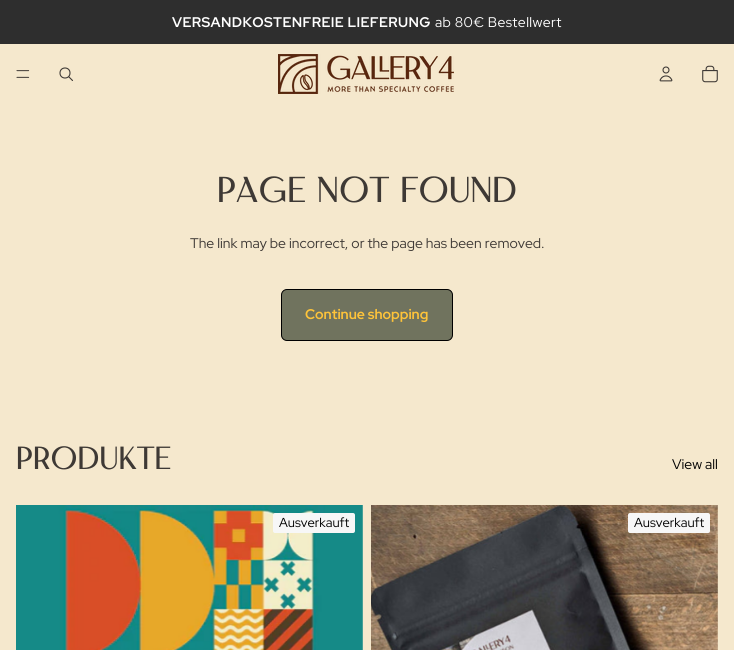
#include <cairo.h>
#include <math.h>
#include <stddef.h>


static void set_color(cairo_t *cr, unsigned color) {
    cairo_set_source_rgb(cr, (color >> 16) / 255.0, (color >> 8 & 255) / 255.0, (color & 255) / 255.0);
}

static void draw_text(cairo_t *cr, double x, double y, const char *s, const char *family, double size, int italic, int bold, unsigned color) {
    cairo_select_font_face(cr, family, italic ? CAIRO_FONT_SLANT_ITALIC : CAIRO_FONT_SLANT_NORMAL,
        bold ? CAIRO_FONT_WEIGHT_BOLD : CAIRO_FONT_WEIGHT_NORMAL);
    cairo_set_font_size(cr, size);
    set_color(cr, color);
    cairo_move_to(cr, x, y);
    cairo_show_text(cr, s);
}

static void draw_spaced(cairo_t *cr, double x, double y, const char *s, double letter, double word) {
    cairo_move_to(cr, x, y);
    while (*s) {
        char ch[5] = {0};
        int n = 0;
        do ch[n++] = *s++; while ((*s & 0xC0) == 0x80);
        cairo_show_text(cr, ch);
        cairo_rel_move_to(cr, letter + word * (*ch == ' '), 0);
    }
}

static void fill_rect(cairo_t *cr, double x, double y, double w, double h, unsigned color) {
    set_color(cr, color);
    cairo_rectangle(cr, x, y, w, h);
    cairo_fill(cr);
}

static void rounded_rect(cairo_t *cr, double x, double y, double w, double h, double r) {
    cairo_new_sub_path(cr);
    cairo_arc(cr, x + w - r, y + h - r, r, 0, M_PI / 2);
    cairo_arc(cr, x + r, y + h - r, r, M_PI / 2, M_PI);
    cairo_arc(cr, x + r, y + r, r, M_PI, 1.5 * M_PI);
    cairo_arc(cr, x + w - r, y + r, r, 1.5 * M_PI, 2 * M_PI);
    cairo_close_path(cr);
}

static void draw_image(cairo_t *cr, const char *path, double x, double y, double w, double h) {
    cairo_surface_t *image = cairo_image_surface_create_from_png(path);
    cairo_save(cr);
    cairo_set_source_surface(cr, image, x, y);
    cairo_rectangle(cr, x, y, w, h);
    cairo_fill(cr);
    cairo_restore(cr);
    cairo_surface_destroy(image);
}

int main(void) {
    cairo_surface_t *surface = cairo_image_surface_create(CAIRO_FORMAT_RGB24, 734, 650);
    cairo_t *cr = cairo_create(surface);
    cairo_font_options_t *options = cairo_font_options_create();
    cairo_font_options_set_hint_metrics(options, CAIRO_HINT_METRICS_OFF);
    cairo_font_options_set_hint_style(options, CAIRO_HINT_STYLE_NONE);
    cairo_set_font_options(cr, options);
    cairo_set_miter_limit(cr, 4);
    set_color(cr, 0xF5E8CD);
    cairo_paint(cr);
    fill_rect(cr, 0, 0, 734, 44, 0x2E2E2E);
    cairo_select_font_face(cr, "Red Hat Display", CAIRO_FONT_SLANT_NORMAL, CAIRO_FONT_WEIGHT_BOLD);
    cairo_set_font_size(cr, 14);
    set_color(cr, 0xFFFFFF);
    draw_spaced(cr, 172, 27, "VERSANDKOSTENFREIE LIEFERUNG", 0.4, 0);
    cairo_select_font_face(cr, "Red Hat Display", CAIRO_FONT_SLANT_NORMAL, CAIRO_FONT_WEIGHT_NORMAL);
    draw_spaced(cr, 435, 27, "ab 80€ Bestellwert", 0.4, 0);
    draw_image(cr, "assets/img1.png", 16, 70, 14, 8);
    cairo_arc(cr, 65, 73, 5, 0, 2 * M_PI);
    set_color(cr, 0x3E3935);
    cairo_set_line_width(cr, 1.1);
    cairo_stroke(cr);
    cairo_new_path(cr);
    cairo_move_to(cr, 69, 77);
    cairo_line_to(cr, 72.5, 80.5);
    cairo_set_line_cap(cr, CAIRO_LINE_CAP_ROUND);
    cairo_set_line_join(cr, CAIRO_LINE_JOIN_ROUND);
    cairo_stroke(cr);
    draw_image(cr, "assets/img2.png", 278, 54, 176, 40);
    draw_image(cr, "assets/img3.png", 659, 66, 14, 16);
    draw_image(cr, "assets/img4.png", 702, 65, 16, 18);
    draw_text(cr, 217, 202, "Page not found", "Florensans", 36, 0, 0, 0x3E3935);
    draw_text(cr, 190, 248, "The link may be incorrect, or the page has been removed.", "Red Hat Display", 14, 0, 0, 0x3E3935);
    set_color(cr, 0x70735E);
    rounded_rect(cr, 281.5, 289.5, 171, 51, 5.5);
    cairo_fill_preserve(cr);
    set_color(cr, 0x000000);
    cairo_set_line_width(cr, 1);
    cairo_set_line_cap(cr, CAIRO_LINE_CAP_BUTT);
    cairo_set_line_join(cr, CAIRO_LINE_JOIN_MITER);
    cairo_stroke(cr);
    draw_text(cr, 305, 319, "Continue shopping", "Red Hat Display", 14, 0, 1, 0xFFC439);
    draw_text(cr, 16, 469, "Produkte", "Florensans", 32, 0, 0, 0x3E3935);
    draw_text(cr, 672, 469, "View all", "Red Hat Display", 14, 0, 0, 0x000000);
    draw_image(cr, "assets/img5.png", 16, 505, 347, 145);
    set_color(cr, 0xF7F7F7);
    rounded_rect(cr, 273, 513, 82, 20, 2);
    cairo_fill(cr);
    draw_text(cr, 279, 527, "Ausverkauft", "Red Hat Display", 13, 0, 0, 0x000000);
    draw_image(cr, "assets/img6.png", 371, 505, 347, 145);
    set_color(cr, 0xF7F7F7);
    rounded_rect(cr, 628, 513, 82, 20, 2);
    cairo_fill(cr);
    draw_text(cr, 634, 527, "Ausverkauft", "Red Hat Display", 13, 0, 0, 0x000000);
    cairo_surface_write_to_png(surface, "output.png");
    cairo_font_options_destroy(options);
    cairo_destroy(cr);
    cairo_surface_destroy(surface);
    return 0;
}
